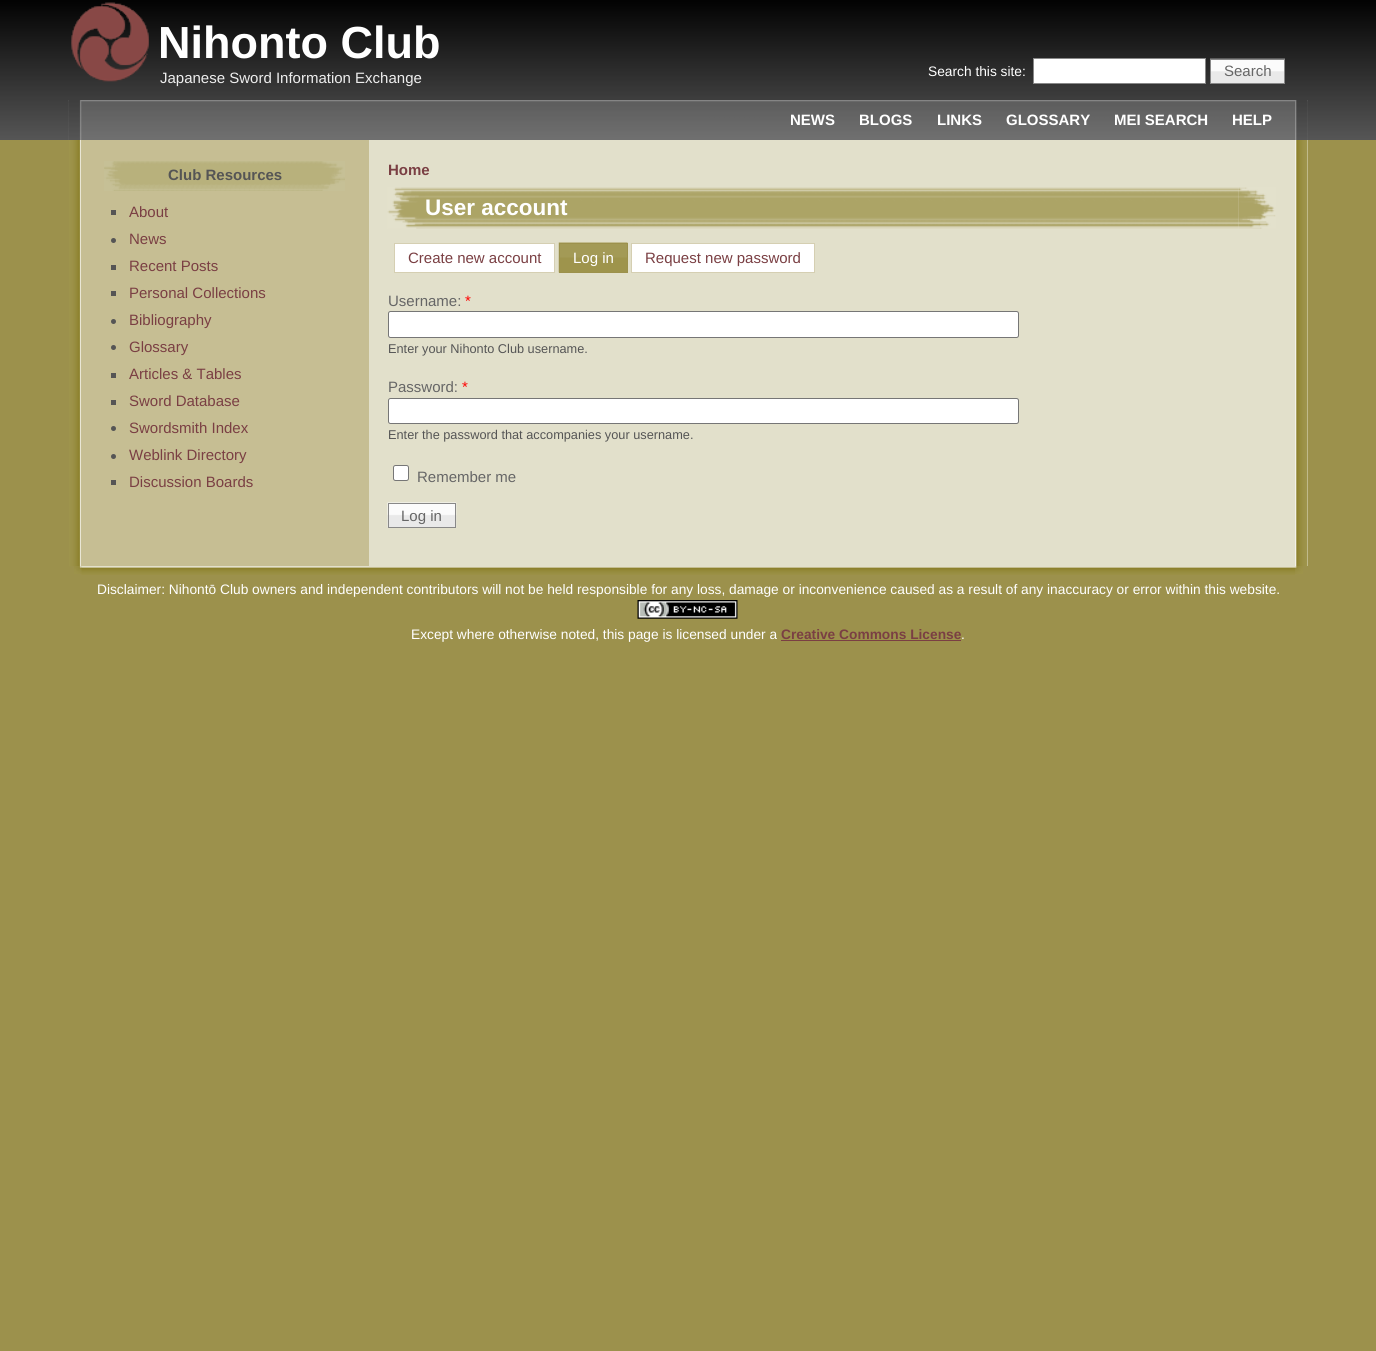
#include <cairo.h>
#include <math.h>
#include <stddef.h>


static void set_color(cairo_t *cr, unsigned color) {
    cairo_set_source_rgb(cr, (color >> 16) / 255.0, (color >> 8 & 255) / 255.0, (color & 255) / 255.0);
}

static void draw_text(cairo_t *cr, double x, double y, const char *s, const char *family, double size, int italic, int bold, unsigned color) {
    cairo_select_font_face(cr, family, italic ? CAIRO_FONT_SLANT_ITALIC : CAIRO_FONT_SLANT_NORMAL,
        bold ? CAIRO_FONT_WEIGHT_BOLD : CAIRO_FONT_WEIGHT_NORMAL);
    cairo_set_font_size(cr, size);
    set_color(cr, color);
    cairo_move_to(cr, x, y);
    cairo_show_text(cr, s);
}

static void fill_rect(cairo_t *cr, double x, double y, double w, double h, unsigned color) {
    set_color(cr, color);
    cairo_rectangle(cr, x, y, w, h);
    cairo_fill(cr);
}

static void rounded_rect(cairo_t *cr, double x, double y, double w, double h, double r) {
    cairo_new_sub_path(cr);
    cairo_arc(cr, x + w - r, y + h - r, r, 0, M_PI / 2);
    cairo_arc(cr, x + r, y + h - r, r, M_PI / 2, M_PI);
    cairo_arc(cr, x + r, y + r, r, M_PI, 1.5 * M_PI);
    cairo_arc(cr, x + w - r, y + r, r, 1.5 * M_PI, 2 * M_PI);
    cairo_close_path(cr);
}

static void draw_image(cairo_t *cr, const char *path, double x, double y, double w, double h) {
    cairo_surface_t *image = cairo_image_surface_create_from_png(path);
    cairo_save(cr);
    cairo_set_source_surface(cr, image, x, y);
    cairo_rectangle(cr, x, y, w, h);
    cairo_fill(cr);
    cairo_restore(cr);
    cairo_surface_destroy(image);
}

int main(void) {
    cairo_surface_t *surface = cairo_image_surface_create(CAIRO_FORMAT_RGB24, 1376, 1351);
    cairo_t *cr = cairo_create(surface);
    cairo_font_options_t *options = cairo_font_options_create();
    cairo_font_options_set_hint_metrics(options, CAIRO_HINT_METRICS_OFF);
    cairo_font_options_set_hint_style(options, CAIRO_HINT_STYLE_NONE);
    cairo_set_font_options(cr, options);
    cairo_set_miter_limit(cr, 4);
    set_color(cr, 0x9C914C);
    cairo_paint(cr);
    draw_image(cr, "assets/img1.png", 0, 0, 1376, 140);
    draw_image(cr, "assets/img2.png", 71, 2, 78, 80);
    draw_text(cr, 158, 58, "Nihonto Club", "Liberation Sans", 45, 0, 1, 0xFFFFFF);
    draw_text(cr, 160, 83, "Japanese Sword Information Exchange", "Liberation Sans", 15, 0, 0, 0xEEEEEE);
    draw_text(cr, 928, 76, "Search this site:", "Liberation Sans", 13.75, 0, 0, 0xFFFFFF);
    cairo_rectangle(cr, 1033.5, 58.5, 172, 25);
    cairo_fill_preserve(cr);
    set_color(cr, 0x888888);
    cairo_set_line_width(cr, 1);
    cairo_stroke(cr);
    draw_image(cr, "assets/img3.png", 1210, 58, 75, 25);
    cairo_rectangle(cr, 1210.5, 59.5, 74, 24);
    cairo_stroke(cr);
    draw_text(cr, 1224, 76, "Search", "Liberation Sans", 15, 0, 0, 0x666666);
    draw_image(cr, "assets/img4.png", 68, 100, 1240, 40);
    draw_image(cr, "assets/img5.png", 68, 100, 14, 40);
    draw_text(cr, 790, 125, "NEWS", "Liberation Sans", 15, 0, 1, 0xFFFFFF);
    draw_text(cr, 859, 125, "BLOGS", "Liberation Sans", 15, 0, 1, 0xFFFFFF);
    draw_text(cr, 937, 125, "LINKS", "Liberation Sans", 15, 0, 1, 0xFFFFFF);
    draw_text(cr, 1006, 125, "GLOSSARY", "Liberation Sans", 15, 0, 1, 0xFFFFFF);
    draw_text(cr, 1114, 125, "MEI SEARCH", "Liberation Sans", 15, 0, 1, 0xFFFFFF);
    draw_text(cr, 1232, 125, "HELP", "Liberation Sans", 15, 0, 1, 0xFFFFFF);
    draw_image(cr, "assets/img6.png", 1295, 100, 13, 40);
    fill_rect(cr, 369, 140, 939, 426, 0xE2E0CB);
    draw_image(cr, "assets/img7.png", 69, 140, 13, 427);
    fill_rect(cr, 81, 140, 288, 426, 0xC6BE93);
    draw_image(cr, "assets/img8.png", 104, 161, 241, 30);
    draw_text(cr, 168, 180, "Club Resources", "Liberation Sans", 15, 0, 1, 0x555555);
    fill_rect(cr, 111, 210, 5, 5, 0x555555);
    draw_text(cr, 129, 217, "About", "Liberation Sans", 15, 0, 0, 0x7A3F43);
    set_color(cr, 0x555555);
    cairo_new_path(cr);
    cairo_arc(cr, 113.5, 240.5, 2.5, 0, 2 * M_PI);
    cairo_fill(cr);
    draw_text(cr, 129, 244, "News", "Liberation Sans", 15, 0, 0, 0x7A3F43);
    fill_rect(cr, 111, 265, 5, 5, 0x555555);
    draw_text(cr, 129, 271, "Recent Posts", "Liberation Sans", 15, 0, 0, 0x7A3F43);
    fill_rect(cr, 111, 291, 5, 5, 0x555555);
    draw_text(cr, 129, 298, "Personal Collections", "Liberation Sans", 15, 0, 0, 0x7A3F43);
    set_color(cr, 0x555555);
    cairo_new_path(cr);
    cairo_arc(cr, 113.5, 321.5, 2.5, 0, 2 * M_PI);
    cairo_fill(cr);
    draw_text(cr, 129, 325, "Bibliography", "Liberation Sans", 15, 0, 0, 0x7A3F43);
    set_color(cr, 0x555555);
    cairo_new_path(cr);
    cairo_arc(cr, 113.5, 347.5, 2.5, 0, 2 * M_PI);
    cairo_fill(cr);
    draw_text(cr, 129, 352, "Glossary", "Liberation Sans", 15, 0, 0, 0x7A3F43);
    fill_rect(cr, 111, 373, 5, 5, 0x555555);
    draw_text(cr, 129, 379, "Articles & Tables", "Liberation Sans", 15, 0, 0, 0x7A3F43);
    fill_rect(cr, 111, 400, 5, 5, 0x555555);
    draw_text(cr, 129, 406, "Sword Database", "Liberation Sans", 15, 0, 0, 0x7A3F43);
    set_color(cr, 0x555555);
    cairo_new_path(cr);
    cairo_arc(cr, 113.5, 428.5, 2.5, 0, 2 * M_PI);
    cairo_fill(cr);
    draw_text(cr, 129, 433, "Swordsmith Index", "Liberation Sans", 15, 0, 0, 0x7A3F43);
    set_color(cr, 0x555555);
    cairo_new_path(cr);
    cairo_arc(cr, 113.5, 456.5, 2.5, 0, 2 * M_PI);
    cairo_fill(cr);
    draw_text(cr, 129, 460, "Weblink Directory", "Liberation Sans", 15, 0, 0, 0x7A3F43);
    fill_rect(cr, 111, 480, 5, 5, 0x555555);
    draw_text(cr, 129, 487, "Discussion Boards", "Liberation Sans", 15, 0, 0, 0x7A3F43);
    draw_text(cr, 388, 175, "Home", "Liberation Sans", 15, 0, 1, 0x7A3F43);
    draw_image(cr, "assets/img9.png", 387, 187, 38, 42);
    draw_image(cr, "assets/img10.png", 425, 187, 814, 42);
    draw_text(cr, 425, 215, "User account", "Liberation Sans", 22.5, 0, 1, 0xFFFFFF);
    draw_image(cr, "assets/img11.png", 1238, 187, 38, 42);
    cairo_rectangle(cr, 394.5, 243.5, 160, 29);
    cairo_fill_preserve(cr);
    set_color(cr, 0xD5CFB2);
    cairo_stroke(cr);
    draw_text(cr, 408, 263, "Create new account", "Liberation Sans", 15, 0, 0, 0x7A3F43);
    draw_image(cr, "assets/img12.png", 558, 242, 70, 31);
    cairo_rectangle(cr, 559.5, 243.5, 68, 29);
    set_color(cr, 0x9C914C);
    cairo_stroke(cr);
    draw_text(cr, 573, 263, "Log in", "Liberation Sans", 15, 0, 0, 0xFFFFFF);
    cairo_rectangle(cr, 631.5, 243.5, 183, 29);
    cairo_fill_preserve(cr);
    set_color(cr, 0xD5CFB2);
    cairo_stroke(cr);
    draw_text(cr, 645, 263, "Request new password", "Liberation Sans", 15, 0, 0, 0x7A3F43);
    draw_text(cr, 388, 306, "Username:", "Liberation Sans", 15, 0, 0, 0x666666);
    draw_text(cr, 465, 306, "*", "Liberation Sans", 15, 0, 0, 0xFF0000);
    set_color(cr, 0xFFFFFF);
    rounded_rect(cr, 388.5, 311.5, 630, 26, 2);
    cairo_fill_preserve(cr);
    set_color(cr, 0x767676);
    cairo_stroke(cr);
    draw_text(cr, 388, 353, "Enter your Nihonto Club username.", "Liberation Sans", 12.75, 0, 0, 0x555555);
    draw_text(cr, 388, 392, "Password:", "Liberation Sans", 15, 0, 0, 0x666666);
    draw_text(cr, 462, 392, "*", "Liberation Sans", 15, 0, 0, 0xFF0000);
    set_color(cr, 0xFFFFFF);
    rounded_rect(cr, 388.5, 398.5, 630, 25, 2);
    cairo_fill_preserve(cr);
    set_color(cr, 0x767676);
    cairo_stroke(cr);
    draw_text(cr, 388, 439, "Enter the password that accompanies your username.", "Liberation Sans", 12.75, 0, 0, 0x555555);
    set_color(cr, 0xFFFFFF);
    rounded_rect(cr, 393.5, 465.5, 15, 15, 2);
    cairo_fill_preserve(cr);
    set_color(cr, 0x767676);
    cairo_stroke(cr);
    draw_text(cr, 417, 482, "Remember me", "Liberation Sans", 15, 0, 0, 0x666666);
    draw_image(cr, "assets/img13.png", 387, 502, 70, 26);
    cairo_rectangle(cr, 388.5, 503.5, 67, 24);
    set_color(cr, 0x888888);
    cairo_stroke(cr);
    draw_text(cr, 401, 521, "Log in", "Liberation Sans", 15, 0, 0, 0x666666);
    draw_image(cr, "assets/img14.png", 1295, 140, 13, 427);
    draw_image(cr, "assets/img15.png", 74, 566, 8, 8);
    draw_image(cr, "assets/img16.png", 1295, 566, 8, 8);
    draw_image(cr, "assets/img17.png", 81, 566, 1214, 9);
    draw_text(cr, 97, 594, "Disclaimer: Nihontō Club owners and independent contributors will not be held responsible for any loss, damage or inconvenience caused as a result of any inaccuracy or error within this website.", "Liberation Sans", 13.75, 0, 0, 0xFFFFFF);
    draw_image(cr, "assets/img18.png", 637, 600, 101, 19);
    draw_text(cr, 411, 639, "Except where otherwise noted, this page is licensed under a", "Liberation Sans", 13.75, 0, 0, 0xFFFFFF);
    draw_text(cr, 781, 639, "Creative Commons License", "Liberation Sans", 13.75, 0, 1, 0x7A3F43);
    fill_rect(cr, 781, 640, 180, 1, 0x7A3F43);
    draw_text(cr, 961, 639, ".", "Liberation Sans", 13.75, 0, 0, 0xFFFFFF);
    cairo_surface_write_to_png(surface, "output.png");
    cairo_font_options_destroy(options);
    cairo_destroy(cr);
    cairo_surface_destroy(surface);
    return 0;
}
